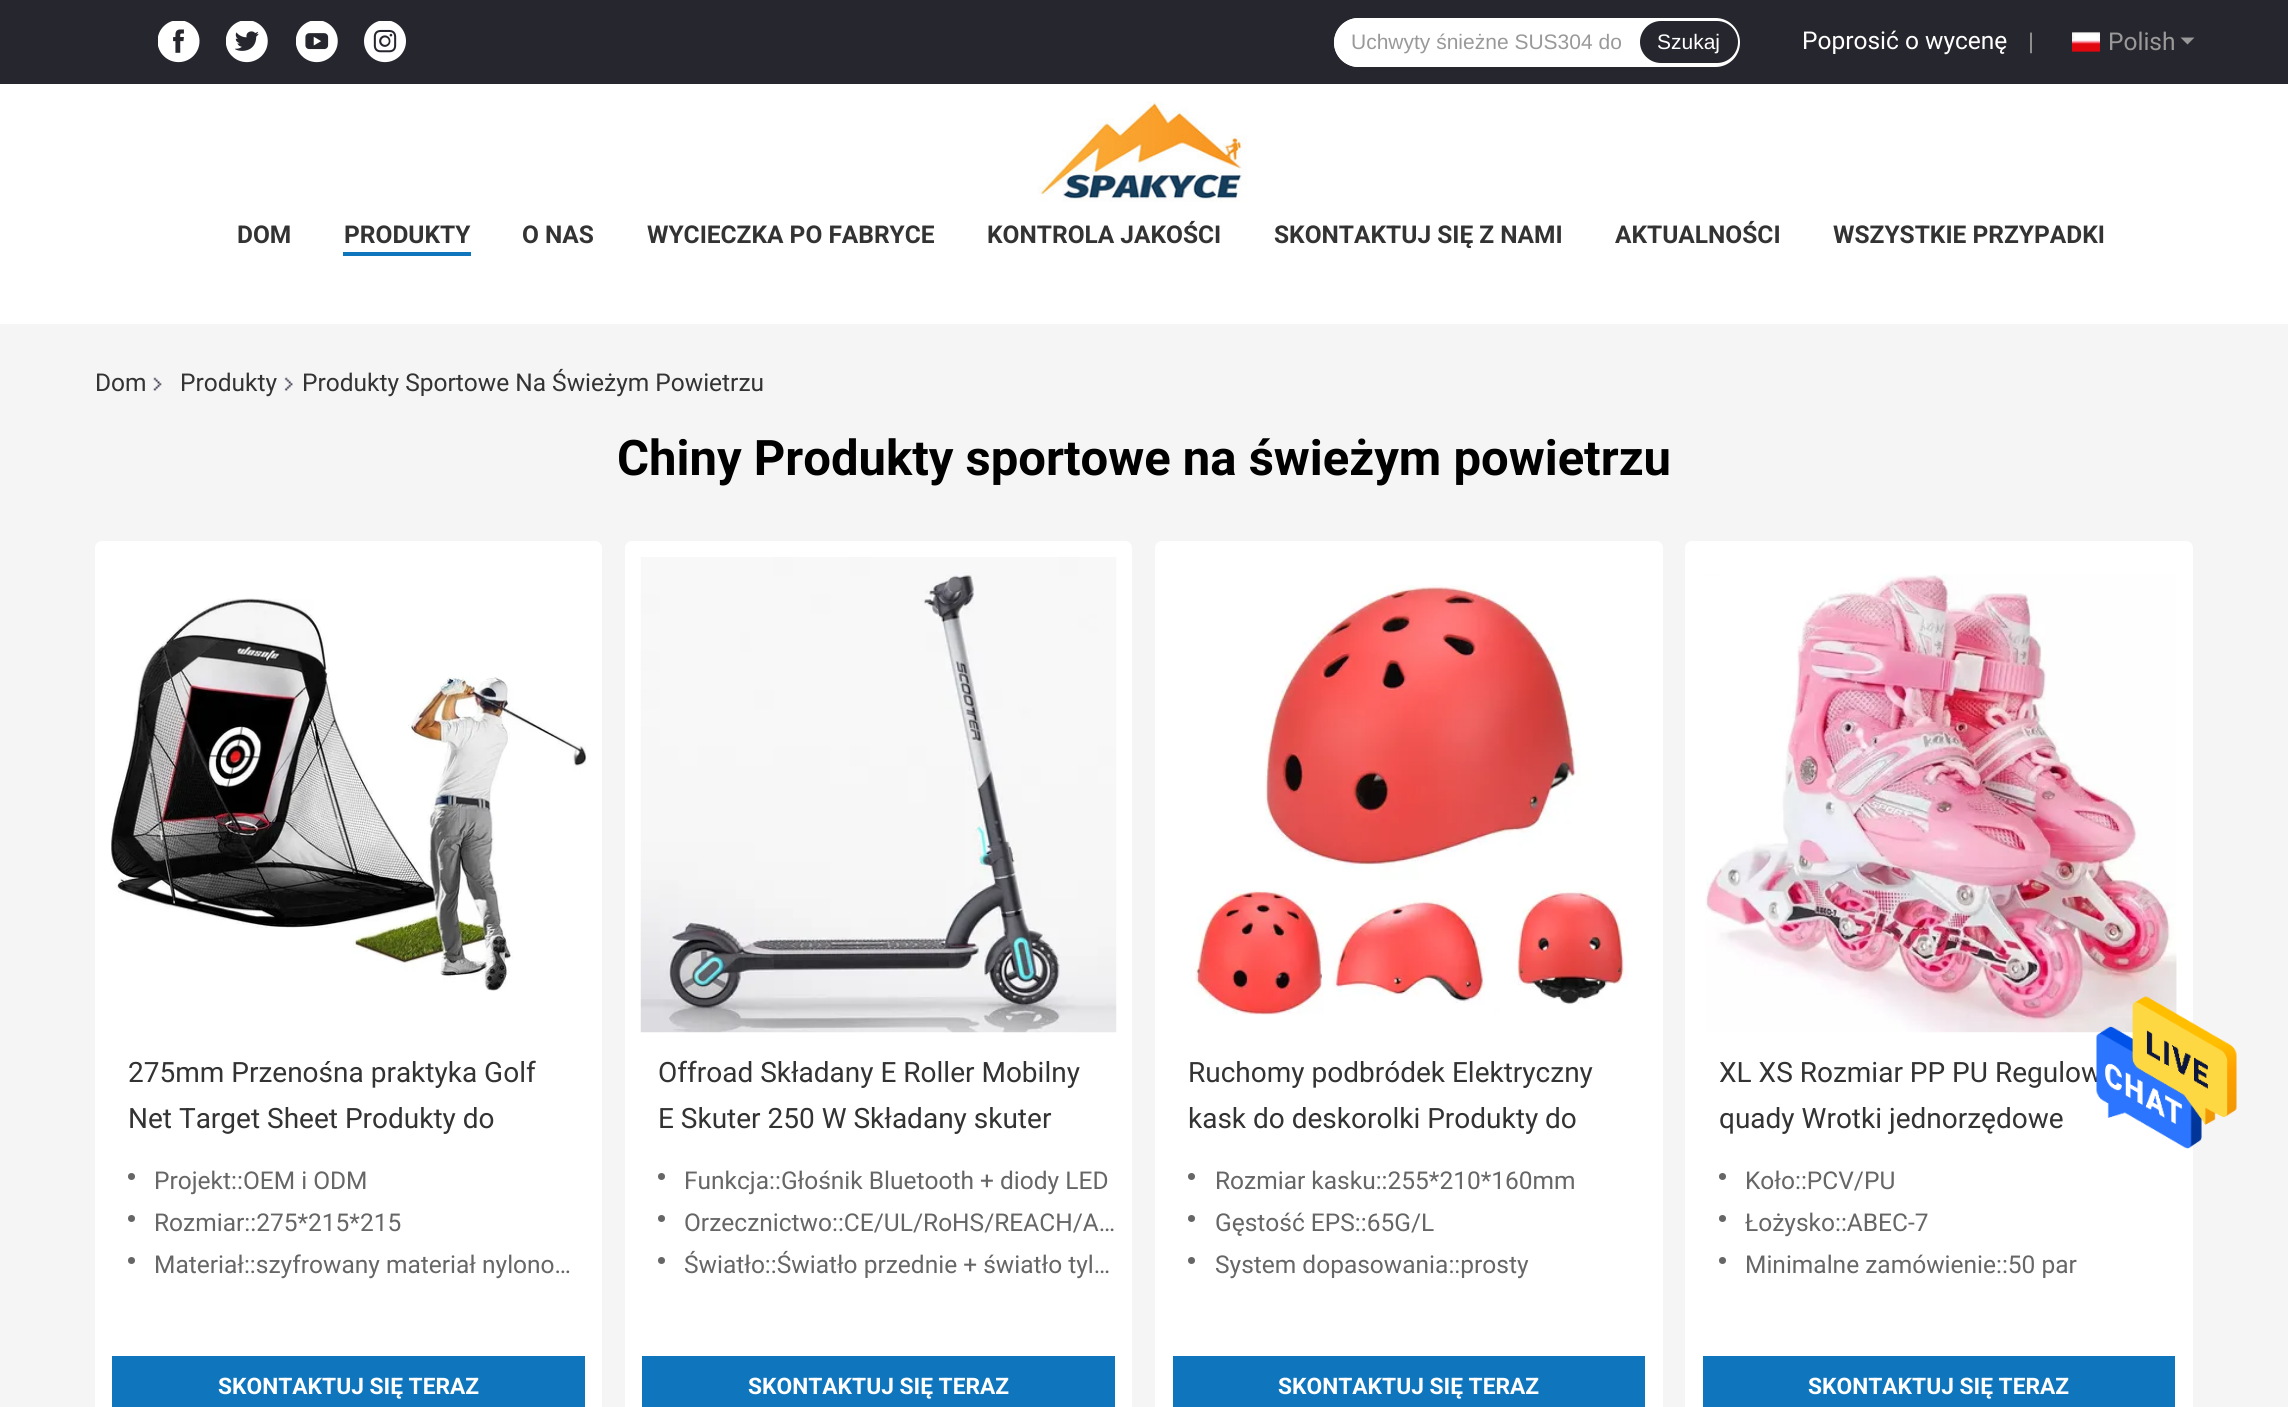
#include <cairo.h>
#include <math.h>
#include <stddef.h>


static void set_color(cairo_t *cr, unsigned color) {
    cairo_set_source_rgb(cr, (color >> 16) / 255.0, (color >> 8 & 255) / 255.0, (color & 255) / 255.0);
}

static void draw_text(cairo_t *cr, double x, double y, const char *s, const char *family, double size, int italic, int bold, unsigned color) {
    cairo_select_font_face(cr, family, italic ? CAIRO_FONT_SLANT_ITALIC : CAIRO_FONT_SLANT_NORMAL,
        bold ? CAIRO_FONT_WEIGHT_BOLD : CAIRO_FONT_WEIGHT_NORMAL);
    cairo_set_font_size(cr, size);
    set_color(cr, color);
    cairo_move_to(cr, x, y);
    cairo_show_text(cr, s);
}

static void fill_rect(cairo_t *cr, double x, double y, double w, double h, unsigned color) {
    set_color(cr, color);
    cairo_rectangle(cr, x, y, w, h);
    cairo_fill(cr);
}

static void rounded_rect(cairo_t *cr, double x, double y, double w, double h, double r) {
    cairo_new_sub_path(cr);
    cairo_arc(cr, x + w - r, y + h - r, r, 0, M_PI / 2);
    cairo_arc(cr, x + r, y + h - r, r, M_PI / 2, M_PI);
    cairo_arc(cr, x + r, y + r, r, M_PI, 1.5 * M_PI);
    cairo_arc(cr, x + w - r, y + r, r, 1.5 * M_PI, 2 * M_PI);
    cairo_close_path(cr);
}

static void draw_image(cairo_t *cr, const char *path, double x, double y, double w, double h) {
    cairo_surface_t *image = cairo_image_surface_create_from_png(path);
    cairo_save(cr);
    cairo_set_source_surface(cr, image, x, y);
    cairo_rectangle(cr, x, y, w, h);
    cairo_fill(cr);
    cairo_restore(cr);
    cairo_surface_destroy(image);
}

int main(void) {
    cairo_surface_t *surface = cairo_image_surface_create(CAIRO_FORMAT_RGB24, 2288, 1407);
    cairo_t *cr = cairo_create(surface);
    cairo_font_options_t *options = cairo_font_options_create();
    cairo_font_options_set_hint_metrics(options, CAIRO_HINT_METRICS_OFF);
    cairo_font_options_set_hint_style(options, CAIRO_HINT_STYLE_NONE);
    cairo_set_font_options(cr, options);
    cairo_set_miter_limit(cr, 4);
    set_color(cr, 0xF5F5F5);
    cairo_paint(cr);
    fill_rect(cr, 0, 84, 2288, 240, 0xFFFFFF);
    fill_rect(cr, 0, 0, 2288, 84, 0x26262E);
    draw_image(cr, "assets/img1.png", 158, 21, 42, 42);
    draw_image(cr, "assets/img2.png", 226, 21, 42, 42);
    draw_image(cr, "assets/img3.png", 296, 21, 42, 42);
    draw_image(cr, "assets/img4.png", 364, 21, 42, 42);
    set_color(cr, 0xFFFFFF);
    rounded_rect(cr, 1334, 18, 406, 49, 24.5);
    cairo_fill(cr);
    cairo_new_path(cr);
    cairo_move_to(cr, 1358.5, 18);
    cairo_line_to(cr, 1640, 18);
    cairo_line_to(cr, 1640, 67);
    cairo_line_to(cr, 1358.5, 67);
    cairo_curve_to(cr, 1345, 67, 1334, 56, 1334, 42.5);
    cairo_curve_to(cr, 1334, 29, 1345, 18, 1358.5, 18);
    cairo_close_path(cr);
    cairo_fill(cr);
    draw_text(cr, 1351, 49, "Uchwyty śnieżne SUS304 do", "Liberation Sans", 21, 0, 0, 0x999999);
    set_color(cr, 0x26262E);
    rounded_rect(cr, 1640, 21, 98, 42, 21);
    cairo_fill(cr);
    draw_text(cr, 1657, 49, "Szukaj", "Liberation Sans", 21, 0, 0, 0xFFFFFF);
    draw_text(cr, 1802, 49, "Poprosić o wycenę", "Roboto", 24.5, 0, 0, 0xFFFFFF);
    draw_text(cr, 2028, 50, "|", "Roboto", 24.5, 0, 0, 0x999999);
    draw_image(cr, "assets/img5.png", 2072, 32, 28, 20);
    draw_text(cr, 2108, 50, "Polish", "Roboto", 24.5, 0, 0, 0x999999);
    cairo_new_path(cr);
    cairo_move_to(cr, 2180.5, 37.5);
    cairo_line_to(cr, 2194.5, 37.5);
    cairo_line_to(cr, 2187.5, 44.5);
    cairo_close_path(cr);
    cairo_fill(cr);
    draw_image(cr, "assets/img6.png", 1037, 101, 210, 101);
    draw_text(cr, 237, 243, "DOM", "Roboto", 24.5, 0, 1, 0x333333);
    draw_text(cr, 344, 243, "PRODUKTY", "Roboto", 24.5, 0, 1, 0x333333);
    fill_rect(cr, 343, 252, 128, 4, 0x0F75BD);
    draw_text(cr, 522, 243, "O NAS", "Roboto", 24.5, 0, 1, 0x333333);
    draw_text(cr, 647, 243, "WYCIECZKA PO FABRYCE", "Roboto", 24.5, 0, 1, 0x333333);
    draw_text(cr, 987, 243, "KONTROLA JAKOŚCI", "Roboto", 24.5, 0, 1, 0x333333);
    draw_text(cr, 1274, 243, "SKONTAKTUJ SIĘ Z NAMI", "Roboto", 24.5, 0, 1, 0x333333);
    draw_text(cr, 1615, 243, "AKTUALNOŚCI", "Roboto", 24.5, 0, 1, 0x333333);
    draw_text(cr, 1833, 243, "WSZYSTKIE PRZYPADKI", "Roboto", 24.5, 0, 1, 0x333333);
    draw_text(cr, 95, 391, "Dom", "Roboto", 24.5, 0, 0, 0x333333);
    draw_image(cr, "assets/img7.png", 153, 377, 9, 14);
    draw_text(cr, 180, 391, "Produkty", "Roboto", 24.5, 0, 0, 0x333333);
    draw_image(cr, "assets/img8.png", 284, 377, 9, 14);
    draw_text(cr, 302, 391, "Produkty Sportowe Na Świeżym Powietrzu", "Roboto", 24.5, 0, 0, 0x333333);
    draw_text(cr, 617, 475, "Chiny Produkty sportowe na świeżym powietrzu", "Roboto", 49, 0, 1, 0x000000);
    set_color(cr, 0xFFFFFF);
    rounded_rect(cr, 95, 541, 507, 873, 7);
    cairo_fill(cr);
    draw_image(cr, "assets/img9.png", 110, 598, 477, 393);
    draw_text(cr, 128, 1082, "275mm Przenośna praktyka Golf", "Roboto", 28, 0, 0, 0x333333);
    draw_text(cr, 128, 1128, "Net Target Sheet Produkty do", "Roboto", 28, 0, 0, 0x333333);
    set_color(cr, 0x666666);
    cairo_new_path(cr);
    cairo_arc(cr, 131.5, 1176.5, 3.5, 0, 2 * M_PI);
    cairo_fill(cr);
    draw_text(cr, 154, 1189, "Projekt::OEM i ODM", "Roboto", 24.5, 0, 0, 0x666666);
    cairo_new_path(cr);
    cairo_arc(cr, 131.5, 1218.5, 3.5, 0, 2 * M_PI);
    cairo_fill(cr);
    draw_text(cr, 154, 1231, "Rozmiar::275*215*215", "Roboto", 24.5, 0, 0, 0x666666);
    cairo_new_path(cr);
    cairo_arc(cr, 131.5, 1260.5, 3.5, 0, 2 * M_PI);
    cairo_fill(cr);
    draw_text(cr, 154, 1273, "Materiał::szyfrowany materiał nylono…", "Roboto", 24.5, 0, 0, 0x666666);
    fill_rect(cr, 112, 1356, 473, 51, 0x0F75BD);
    draw_text(cr, 218, 1394, "SKONTAKTUJ SIĘ TERAZ", "Roboto", 22.75, 0, 1, 0xFFFFFF);
    rounded_rect(cr, 625, 541, 507, 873, 7);
    cairo_fill(cr);
    draw_image(cr, "assets/img10.png", 640, 557, 477, 476);
    draw_text(cr, 658, 1082, "Offroad Składany E Roller Mobilny", "Roboto", 28, 0, 0, 0x333333);
    draw_text(cr, 658, 1128, "E Skuter 250 W Składany skuter", "Roboto", 28, 0, 0, 0x333333);
    set_color(cr, 0x666666);
    cairo_new_path(cr);
    cairo_arc(cr, 661.5, 1176.5, 3.5, 0, 2 * M_PI);
    cairo_fill(cr);
    draw_text(cr, 684, 1189, "Funkcja::Głośnik Bluetooth + diody LED", "Roboto", 24.5, 0, 0, 0x666666);
    cairo_new_path(cr);
    cairo_arc(cr, 661.5, 1218.5, 3.5, 0, 2 * M_PI);
    cairo_fill(cr);
    draw_text(cr, 684, 1231, "Orzecznictwo::CE/UL/RoHS/REACH/A…", "Roboto", 24.5, 0, 0, 0x666666);
    cairo_new_path(cr);
    cairo_arc(cr, 661.5, 1260.5, 3.5, 0, 2 * M_PI);
    cairo_fill(cr);
    draw_text(cr, 684, 1273, "Światło::Światło przednie + światło tyl…", "Roboto", 24.5, 0, 0, 0x666666);
    fill_rect(cr, 642, 1356, 473, 51, 0x0F75BD);
    draw_text(cr, 748, 1394, "SKONTAKTUJ SIĘ TERAZ", "Roboto", 22.75, 0, 1, 0xFFFFFF);
    rounded_rect(cr, 1155, 541, 508, 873, 7);
    cairo_fill(cr);
    draw_image(cr, "assets/img11.png", 1190, 585, 438, 430);
    draw_text(cr, 1188, 1082, "Ruchomy podbródek Elektryczny", "Roboto", 28, 0, 0, 0x333333);
    draw_text(cr, 1188, 1128, "kask do deskorolki Produkty do", "Roboto", 28, 0, 0, 0x333333);
    set_color(cr, 0x666666);
    cairo_new_path(cr);
    cairo_arc(cr, 1191.5, 1176.5, 3.5, 0, 2 * M_PI);
    cairo_fill(cr);
    draw_text(cr, 1215, 1189, "Rozmiar kasku::255*210*160mm", "Roboto", 24.5, 0, 0, 0x666666);
    cairo_new_path(cr);
    cairo_arc(cr, 1191.5, 1218.5, 3.5, 0, 2 * M_PI);
    cairo_fill(cr);
    draw_text(cr, 1215, 1231, "Gęstość EPS::65G/L", "Roboto", 24.5, 0, 0, 0x666666);
    cairo_new_path(cr);
    cairo_arc(cr, 1191.5, 1260.5, 3.5, 0, 2 * M_PI);
    cairo_fill(cr);
    draw_text(cr, 1215, 1273, "System dopasowania::prosty", "Roboto", 24.5, 0, 0, 0x666666);
    fill_rect(cr, 1173, 1356, 472, 51, 0x0F75BD);
    draw_text(cr, 1278, 1394, "SKONTAKTUJ SIĘ TERAZ", "Roboto", 22.75, 0, 1, 0xFFFFFF);
    rounded_rect(cr, 1685, 541, 508, 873, 7);
    cairo_fill(cr);
    draw_image(cr, "assets/img12.png", 1705, 574, 472, 459);
    draw_text(cr, 1719, 1082, "XL XS Rozmiar PP PU Regulow", "Roboto", 28, 0, 0, 0x333333);
    draw_text(cr, 1719, 1128, "quady Wrotki jednorzędowe", "Roboto", 28, 0, 0, 0x333333);
    set_color(cr, 0x666666);
    cairo_new_path(cr);
    cairo_arc(cr, 1722.5, 1176.5, 3.5, 0, 2 * M_PI);
    cairo_fill(cr);
    draw_text(cr, 1745, 1189, "Koło::PCV/PU", "Roboto", 24.5, 0, 0, 0x666666);
    cairo_new_path(cr);
    cairo_arc(cr, 1722.5, 1218.5, 3.5, 0, 2 * M_PI);
    cairo_fill(cr);
    draw_text(cr, 1745, 1231, "Łożysko::ABEC-7", "Roboto", 24.5, 0, 0, 0x666666);
    cairo_new_path(cr);
    cairo_arc(cr, 1722.5, 1260.5, 3.5, 0, 2 * M_PI);
    cairo_fill(cr);
    draw_text(cr, 1745, 1273, "Minimalne zamówienie::50 par", "Roboto", 24.5, 0, 0, 0x666666);
    fill_rect(cr, 1703, 1356, 472, 51, 0x0F75BD);
    draw_text(cr, 1808, 1394, "SKONTAKTUJ SIĘ TERAZ", "Roboto", 22.75, 0, 1, 0xFFFFFF);
    draw_image(cr, "assets/img13.png", 2096, 996, 141, 153);
    cairo_surface_write_to_png(surface, "output.png");
    cairo_font_options_destroy(options);
    cairo_destroy(cr);
    cairo_surface_destroy(surface);
    return 0;
}
